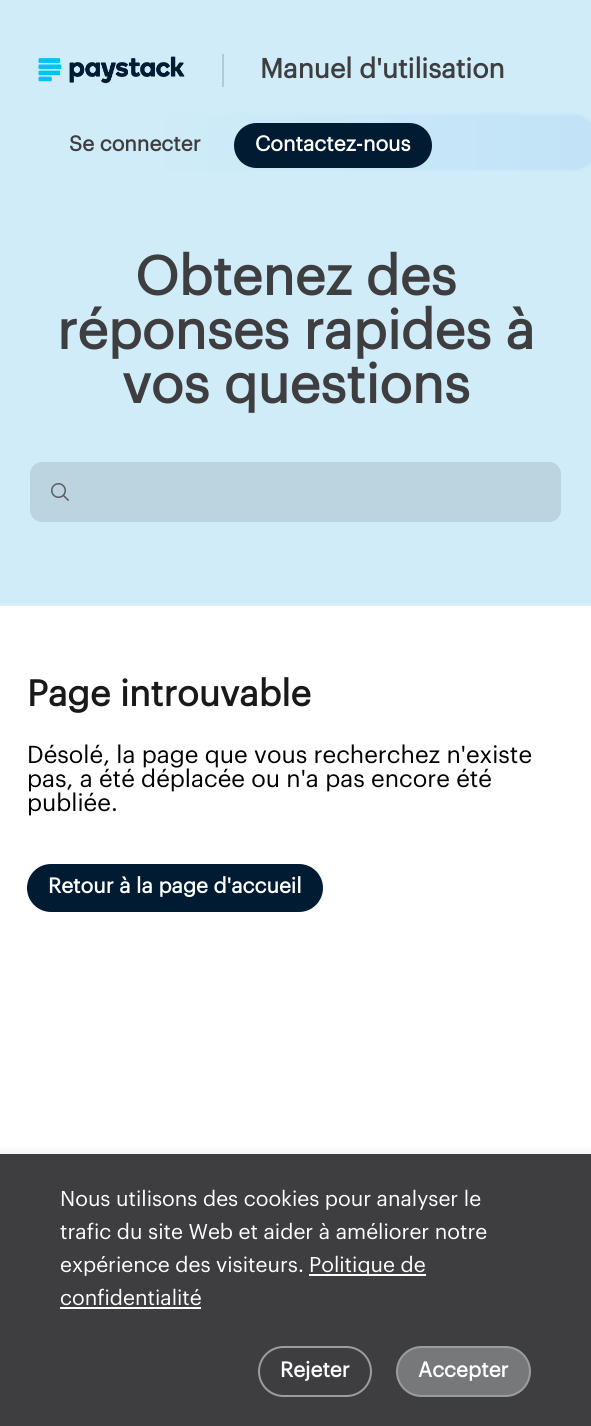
#include <cairo.h>
#include <math.h>
#include <stddef.h>


static void set_color(cairo_t *cr, unsigned color) {
    cairo_set_source_rgb(cr, (color >> 16) / 255.0, (color >> 8 & 255) / 255.0, (color & 255) / 255.0);
}

static void draw_text(cairo_t *cr, double x, double y, const char *s, const char *family, double size, int italic, int bold, unsigned color) {
    cairo_select_font_face(cr, family, italic ? CAIRO_FONT_SLANT_ITALIC : CAIRO_FONT_SLANT_NORMAL,
        bold ? CAIRO_FONT_WEIGHT_BOLD : CAIRO_FONT_WEIGHT_NORMAL);
    cairo_set_font_size(cr, size);
    set_color(cr, color);
    cairo_move_to(cr, x, y);
    cairo_show_text(cr, s);
}

static void fill_rect(cairo_t *cr, double x, double y, double w, double h, unsigned color) {
    set_color(cr, color);
    cairo_rectangle(cr, x, y, w, h);
    cairo_fill(cr);
}

static void rounded_rect(cairo_t *cr, double x, double y, double w, double h, double r) {
    cairo_new_sub_path(cr);
    cairo_arc(cr, x + w - r, y + h - r, r, 0, M_PI / 2);
    cairo_arc(cr, x + r, y + h - r, r, M_PI / 2, M_PI);
    cairo_arc(cr, x + r, y + r, r, M_PI, 1.5 * M_PI);
    cairo_arc(cr, x + w - r, y + r, r, 1.5 * M_PI, 2 * M_PI);
    cairo_close_path(cr);
}

static void draw_shadow(cairo_t *cr, double x, double y, double w, double h, double r, double blur, double alpha) {
    cairo_push_group_with_content(cr, CAIRO_CONTENT_ALPHA);
    cairo_set_operator(cr, CAIRO_OPERATOR_SOURCE);
    for (int i = 15; i >= -15 && fmin(w, h) + blur * i / 3 > 0; i -= 2) {
        double e = blur * i / 6;
        cairo_set_source_rgba(cr, 0, 0, 0, alpha * erfc((i - 1) / 8.5) / 2);
        rounded_rect(cr, x - e, y - e, w + 2 * e, h + 2 * e, fmax(0, fmin(r + e + blur * .6, fmin(w, h) / 2 + e)));
        cairo_fill(cr);
    }
    cairo_pattern_t *soft = cairo_pop_group(cr);
    cairo_mask(cr, soft);
    cairo_pattern_destroy(soft);
}

static void draw_image(cairo_t *cr, const char *path, double x, double y, double w, double h) {
    cairo_surface_t *image = cairo_image_surface_create_from_png(path);
    cairo_save(cr);
    cairo_set_source_surface(cr, image, x, y);
    cairo_rectangle(cr, x, y, w, h);
    cairo_fill(cr);
    cairo_restore(cr);
    cairo_surface_destroy(image);
}

int main(void) {
    cairo_surface_t *surface = cairo_image_surface_create(CAIRO_FORMAT_RGB24, 591, 1426);
    cairo_t *cr = cairo_create(surface);
    cairo_font_options_t *options = cairo_font_options_create();
    cairo_font_options_set_hint_metrics(options, CAIRO_HINT_METRICS_OFF);
    cairo_font_options_set_hint_style(options, CAIRO_HINT_STYLE_NONE);
    cairo_set_font_options(cr, options);
    cairo_set_miter_limit(cr, 4);
    set_color(cr, 0xFFFFFF);
    cairo_paint(cr);
    draw_image(cr, "assets/img1.png", 0, 0, 591, 606);
    draw_image(cr, "assets/img2.png", 38, 56, 147, 28);
    fill_rect(cr, 222, 54, 2, 33, 0xB3C9D3);
    draw_text(cr, 260, 78, "Manuel d'utilisation", "Graphik", 27, 0, 1, 0x3E3E40);
    draw_text(cr, 69, 151, "Se connecter", "Graphik", 21, 0, 1, 0x3E3E40);
    set_color(cr, 0x011B33);
    rounded_rect(cr, 234, 123, 198, 45, 22.5);
    cairo_fill(cr);
    draw_text(cr, 255, 151, "Contactez-nous", "Graphik", 21, 0, 1, 0xFFFFFF);
    draw_text(cr, 135, 295, "Obtenez des", "Graphik", 54, 0, 1, 0x3E3E40);
    draw_text(cr, 57, 349, "réponses rapides à", "Graphik", 54, 0, 1, 0x3E3E40);
    draw_text(cr, 122, 403, "vos questions", "Graphik", 54, 0, 1, 0x3E3E40);
    set_color(cr, 0xBBD4DF);
    rounded_rect(cr, 30, 462, 531, 60, 12);
    cairo_fill(cr);
    draw_image(cr, "assets/img3.png", 51, 483, 18, 18);
    draw_text(cr, 27, 706, "Page introuvable", "Graphik", 36, 0, 1, 0x19191A);
    draw_text(cr, 27, 763, "Désolé, la page que vous recherchez n'existe", "Graphik", 24, 0, 0, 0x000000);
    draw_text(cr, 27, 787, "pas, a été déplacée ou n'a pas encore été", "Graphik", 24, 0, 0, 0x000000);
    draw_text(cr, 27, 811, "publiée.", "Graphik", 24, 0, 0, 0x000000);
    set_color(cr, 0x011B33);
    rounded_rect(cr, 27, 864, 296, 48, 24);
    cairo_fill(cr);
    draw_text(cr, 48, 893, "Retour à la page d'accueil", "Graphik", 21, 0, 1, 0xFFFFFF);
    set_color(cr, 0x000000);
    draw_shadow(cr, 0, 1155, 591, 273, 0, 7, 0.08);
    fill_rect(cr, 0, 1154, 591, 272, 0x3E3E40);
    draw_text(cr, 60, 1206, "Nous utilisons des cookies pour analyser le", "Graphik", 21, 0, 0, 0xFFFFFF);
    draw_text(cr, 60, 1239, "trafic du site Web et aider à améliorer notre", "Graphik", 21, 0, 0, 0xFFFFFF);
    draw_text(cr, 60, 1272, "expérience des visiteurs.", "Graphik", 21, 0, 0, 0xFFFFFF);
    fill_rect(cr, 309, 1274, 117, 2, 0xFFFFFF);
    draw_text(cr, 309, 1272, "Politique de", "Graphik", 21, 0, 0, 0xFFFFFF);
    draw_text(cr, 60, 1305, "confidentialité", "Graphik", 21, 0, 0, 0xFFFFFF);
    fill_rect(cr, 60, 1307, 141, 2, 0xFFFFFF);
    rounded_rect(cr, 259, 1347, 112, 49, 24.5);
    set_color(cr, 0x9B9C9E);
    cairo_stroke(cr);
    draw_text(cr, 280, 1377, "Rejeter", "Graphik", 21, 0, 1, 0xFFFFFF);
    set_color(cr, 0x77787A);
    rounded_rect(cr, 397, 1347, 133, 49, 24.5);
    cairo_fill_preserve(cr);
    set_color(cr, 0x9B9C9E);
    cairo_stroke(cr);
    draw_text(cr, 418, 1377, "Accepter", "Graphik", 21, 0, 1, 0xFFFFFF);
    cairo_surface_write_to_png(surface, "output.png");
    cairo_font_options_destroy(options);
    cairo_destroy(cr);
    cairo_surface_destroy(surface);
    return 0;
}
